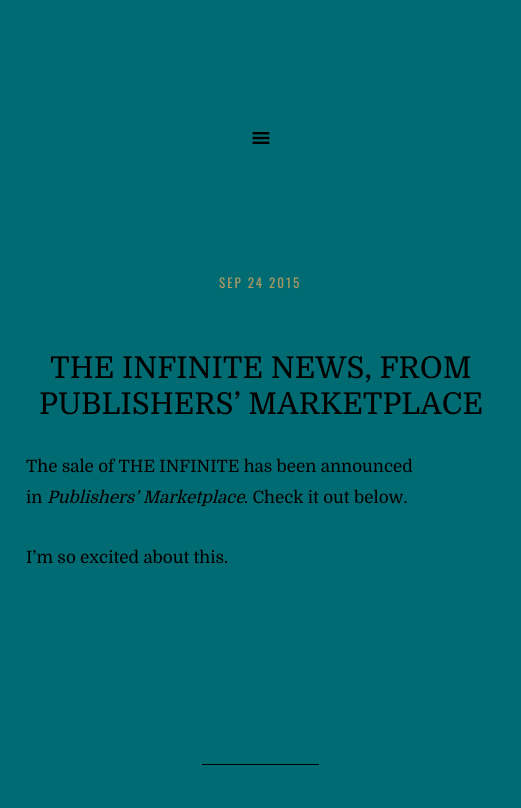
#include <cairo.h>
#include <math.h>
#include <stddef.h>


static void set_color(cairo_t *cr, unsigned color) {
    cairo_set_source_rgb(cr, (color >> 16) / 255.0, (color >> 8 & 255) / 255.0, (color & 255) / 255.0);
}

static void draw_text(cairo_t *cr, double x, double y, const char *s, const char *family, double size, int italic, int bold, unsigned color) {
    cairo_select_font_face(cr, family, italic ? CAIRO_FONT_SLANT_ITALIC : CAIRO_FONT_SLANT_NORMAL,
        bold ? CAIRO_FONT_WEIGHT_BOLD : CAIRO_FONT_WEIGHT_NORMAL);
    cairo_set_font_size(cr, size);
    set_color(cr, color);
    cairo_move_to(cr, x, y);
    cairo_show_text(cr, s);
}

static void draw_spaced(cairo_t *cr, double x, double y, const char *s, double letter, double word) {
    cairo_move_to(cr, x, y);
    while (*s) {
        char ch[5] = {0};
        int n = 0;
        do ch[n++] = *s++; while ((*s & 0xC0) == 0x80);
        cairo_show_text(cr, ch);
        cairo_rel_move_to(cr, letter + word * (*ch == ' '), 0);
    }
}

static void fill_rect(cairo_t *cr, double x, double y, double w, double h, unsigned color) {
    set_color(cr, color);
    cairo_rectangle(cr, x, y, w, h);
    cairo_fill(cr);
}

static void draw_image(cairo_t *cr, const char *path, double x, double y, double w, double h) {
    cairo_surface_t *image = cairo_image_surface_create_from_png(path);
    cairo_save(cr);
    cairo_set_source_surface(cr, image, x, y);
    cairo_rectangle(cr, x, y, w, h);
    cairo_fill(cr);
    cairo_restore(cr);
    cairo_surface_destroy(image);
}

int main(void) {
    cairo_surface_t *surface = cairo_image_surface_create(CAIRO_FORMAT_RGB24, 521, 808);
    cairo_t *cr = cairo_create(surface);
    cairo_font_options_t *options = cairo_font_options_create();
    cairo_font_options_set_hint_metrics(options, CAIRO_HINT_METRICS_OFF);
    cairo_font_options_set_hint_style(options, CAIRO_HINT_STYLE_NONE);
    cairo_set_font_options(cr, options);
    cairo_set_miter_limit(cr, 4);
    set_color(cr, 0x006B72);
    cairo_paint(cr);
    draw_image(cr, "assets/img1.png", 252, 132, 18, 12);
    cairo_select_font_face(cr, "Oswald", CAIRO_FONT_SLANT_NORMAL, CAIRO_FONT_WEIGHT_NORMAL);
    cairo_set_font_size(cr, 13);
    set_color(cr, 0xAD9962);
    draw_spaced(cr, 219, 288, "SEP 24 2015", 2, 0);
    draw_text(cr, 50, 378, "THE INFINITE NEWS, FROM", "Domine", 30, 0, 0, 0x000000);
    draw_text(cr, 39, 414, "PUBLISHERS’ MARKETPLACE", "Domine", 30, 0, 0, 0x000000);
    draw_text(cr, 26, 472, "The sale of THE INFINITE has been announced", "Domine", 17, 0, 0, 0x000000);
    draw_text(cr, 26, 503, "in", "Domine", 17, 0, 0, 0x000000);
    draw_text(cr, 47, 503, "Publishers’ Marketplace", "Domine", 17, 1, 0, 0x000000);
    draw_text(cr, 244, 503, ". Check it out below.", "Domine", 17, 0, 0, 0x000000);
    draw_text(cr, 26, 563, "I’m so excited about this.", "Domine", 17, 0, 0, 0x000000);
    fill_rect(cr, 202, 764, 117, 1, 0x000000);
    cairo_surface_write_to_png(surface, "output.png");
    cairo_font_options_destroy(options);
    cairo_destroy(cr);
    cairo_surface_destroy(surface);
    return 0;
}
